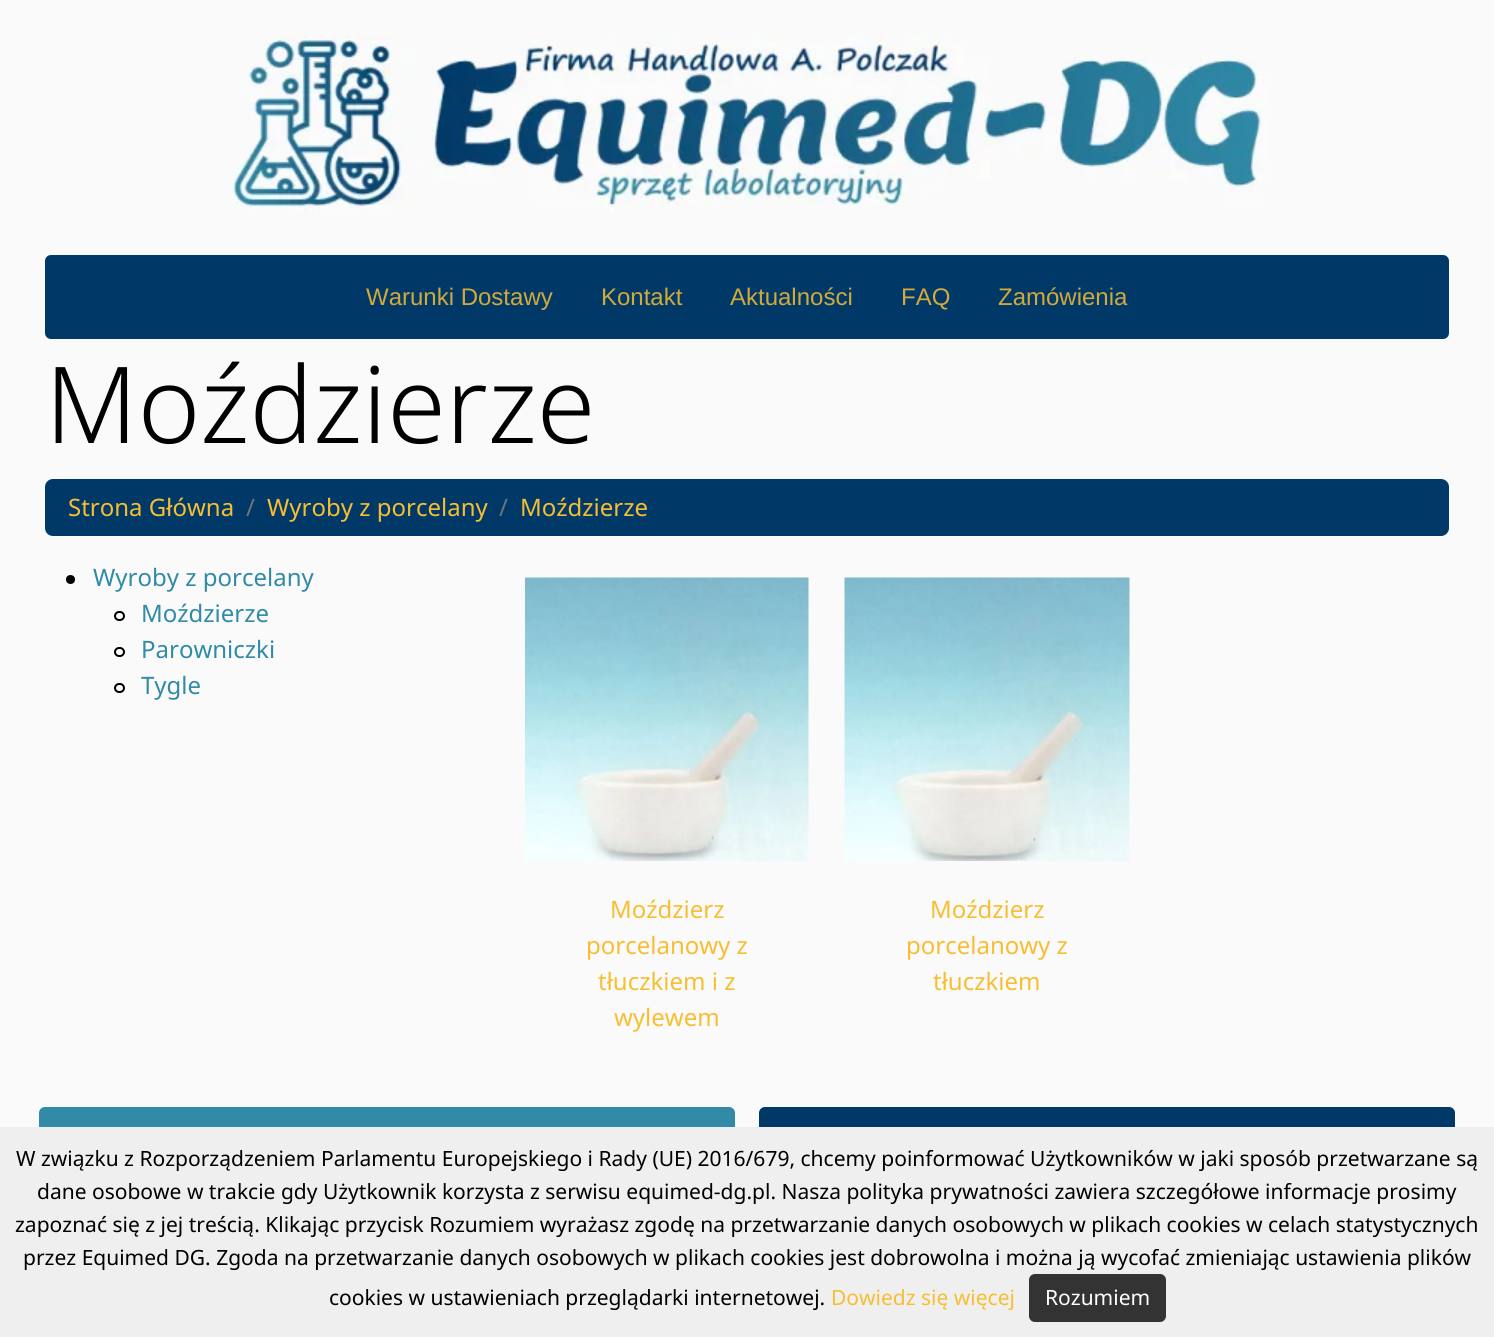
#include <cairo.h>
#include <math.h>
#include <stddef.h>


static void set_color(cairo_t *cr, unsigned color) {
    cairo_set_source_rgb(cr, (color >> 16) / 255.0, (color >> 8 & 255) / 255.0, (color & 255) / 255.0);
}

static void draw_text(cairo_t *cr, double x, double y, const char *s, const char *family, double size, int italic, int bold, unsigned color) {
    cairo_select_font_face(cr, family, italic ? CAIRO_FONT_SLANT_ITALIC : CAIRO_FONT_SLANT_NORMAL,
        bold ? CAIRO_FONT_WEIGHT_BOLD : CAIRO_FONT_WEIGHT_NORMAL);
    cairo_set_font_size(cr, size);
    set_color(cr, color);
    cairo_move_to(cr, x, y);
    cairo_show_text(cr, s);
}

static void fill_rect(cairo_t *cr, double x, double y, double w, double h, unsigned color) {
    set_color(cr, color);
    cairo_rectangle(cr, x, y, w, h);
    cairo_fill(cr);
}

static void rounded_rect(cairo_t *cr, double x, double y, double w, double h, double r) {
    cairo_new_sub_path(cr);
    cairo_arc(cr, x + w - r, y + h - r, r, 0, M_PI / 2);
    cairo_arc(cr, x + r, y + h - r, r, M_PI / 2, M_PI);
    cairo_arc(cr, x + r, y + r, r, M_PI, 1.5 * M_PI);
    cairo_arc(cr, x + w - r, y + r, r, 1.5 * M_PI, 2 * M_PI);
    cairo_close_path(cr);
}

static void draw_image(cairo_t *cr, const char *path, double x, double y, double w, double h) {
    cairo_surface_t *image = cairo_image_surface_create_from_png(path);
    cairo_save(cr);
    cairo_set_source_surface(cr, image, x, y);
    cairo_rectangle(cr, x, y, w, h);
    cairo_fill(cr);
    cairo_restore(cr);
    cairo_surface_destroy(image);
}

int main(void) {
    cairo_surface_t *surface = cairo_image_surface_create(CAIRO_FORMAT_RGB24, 1494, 1337);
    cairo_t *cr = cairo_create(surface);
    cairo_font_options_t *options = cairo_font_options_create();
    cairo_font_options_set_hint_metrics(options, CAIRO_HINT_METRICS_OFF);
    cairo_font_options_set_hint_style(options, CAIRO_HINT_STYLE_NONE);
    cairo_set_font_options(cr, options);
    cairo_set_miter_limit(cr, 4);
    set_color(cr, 0xFAFAFA);
    cairo_paint(cr);
    draw_image(cr, "assets/img1.png", 232, 36, 1035, 174);
    set_color(cr, 0x003968);
    rounded_rect(cr, 45, 255, 1404, 84, 6);
    cairo_fill(cr);
    draw_text(cr, 366, 305, "Warunki Dostawy", "Liberation Sans", 24, 0, 0, 0xD2AA3A);
    draw_text(cr, 601, 305, "Kontakt", "Liberation Sans", 24, 0, 0, 0xD2AA3A);
    draw_text(cr, 730, 305, "Aktualności", "Liberation Sans", 24, 0, 0, 0xD2AA3A);
    draw_text(cr, 901, 305, "FAQ", "Liberation Sans", 24, 0, 0, 0xD2AA3A);
    draw_text(cr, 998, 305, "Zamówienia", "Liberation Sans", 24, 0, 0, 0xD2AA3A);
    draw_text(cr, 45, 443, "Moździerze", "Noto Sans Light", 106.25, 0, 0, 0x000000);
    set_color(cr, 0x003968);
    rounded_rect(cr, 45, 479, 1404, 57, 8);
    cairo_fill(cr);
    draw_text(cr, 68, 516, "Strona Główna", "Noto Sans", 24, 0, 0, 0xF7BE32);
    draw_text(cr, 246, 516, "/", "Noto Sans", 24, 0, 0, 0x6C757D);
    draw_text(cr, 267, 516, "Wyroby z porcelany", "Noto Sans", 24, 0, 0, 0xF7BE32);
    draw_text(cr, 499, 516, "/", "Noto Sans", 24, 0, 0, 0x6C757D);
    draw_text(cr, 520, 516, "Moździerze", "Noto Sans", 24, 0, 0, 0xF7BE32);
    set_color(cr, 0x000000);
    cairo_new_path(cr);
    cairo_arc(cr, 70.5, 579.5, 4.5, 0, 2 * M_PI);
    cairo_fill(cr);
    draw_text(cr, 93, 586, "Wyroby z porcelany", "Noto Sans", 24, 0, 0, 0x318AA6);
    rounded_rect(cr, 115, 612, 9, 8, 4);
    set_color(cr, 0x000000);
    cairo_stroke(cr);
    draw_text(cr, 141, 622, "Moździerze", "Noto Sans", 24, 0, 0, 0x318AA6);
    rounded_rect(cr, 115, 648, 9, 8, 4);
    set_color(cr, 0x000000);
    cairo_stroke(cr);
    draw_text(cr, 141, 658, "Parowniczki", "Noto Sans", 24, 0, 0, 0x318AA6);
    rounded_rect(cr, 115, 684, 9, 8, 4);
    set_color(cr, 0x000000);
    cairo_stroke(cr);
    draw_text(cr, 141, 694, "Tygle", "Noto Sans", 24, 0, 0, 0x318AA6);
    draw_image(cr, "assets/img2.png", 525, 577, 284, 284);
    draw_text(cr, 610, 918, "Moździerz", "Noto Sans", 24, 0, 0, 0xF7BE32);
    draw_text(cr, 586, 954, "porcelanowy z", "Noto Sans", 24, 0, 0, 0xF7BE32);
    draw_text(cr, 598, 990, "tłuczkiem i z", "Noto Sans", 24, 0, 0, 0xF7BE32);
    draw_text(cr, 614, 1026, "wylewem", "Noto Sans", 24, 0, 0, 0xF7BE32);
    draw_image(cr, "assets/img3.png", 844, 577, 286, 284);
    draw_text(cr, 930, 918, "Moździerz", "Noto Sans", 24, 0, 0, 0xF7BE32);
    draw_text(cr, 906, 954, "porcelanowy z", "Noto Sans", 24, 0, 0, 0xF7BE32);
    draw_text(cr, 933, 990, "tłuczkiem", "Noto Sans", 24, 0, 0, 0xF7BE32);
    set_color(cr, 0x318AA6);
    rounded_rect(cr, 39, 1107, 696, 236, 6);
    cairo_fill(cr);
    set_color(cr, 0x003968);
    rounded_rect(cr, 759, 1107, 696, 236, 6);
    cairo_fill(cr);
    fill_rect(cr, 0, 1127, 1494, 210, 0xEFEFEF);
    draw_text(cr, 16, 1166, "W związku z Rozporządzeniem Parlamentu Europejskiego i Rady (UE) 2016/679, chcemy poinformować Użytkowników w jaki sposób przetwarzane są", "Noto Sans", 21, 0, 0, 0x000000);
    draw_text(cr, 37, 1199, "dane osobowe w trakcie gdy Użytkownik korzysta z serwisu equimed-dg.pl. Nasza polityka prywatności zawiera szczegółowe informacje prosimy", "Noto Sans", 21, 0, 0, 0x000000);
    draw_text(cr, 15, 1232, "zapoznać się z jej treścią. Klikając przycisk Rozumiem wyrażasz zgodę na przetwarzanie danych osobowych w plikach cookies w celach statystycznych", "Noto Sans", 21, 0, 0, 0x000000);
    draw_text(cr, 23, 1265, "przez Equimed DG. Zgoda na przetwarzanie danych osobowych w plikach cookies jest dobrowolna i można ją wycofać zmieniając ustawienia plików", "Noto Sans", 21, 0, 0, 0x000000);
    draw_text(cr, 329, 1305, "cookies w ustawieniach przeglądarki internetowej.", "Noto Sans", 21, 0, 0, 0x000000);
    draw_text(cr, 831, 1305, "Dowiedz się więcej", "Noto Sans", 21, 0, 0, 0xF7BE32);
    set_color(cr, 0x333333);
    rounded_rect(cr, 1029, 1274, 137, 48, 6);
    cairo_fill(cr);
    draw_text(cr, 1045, 1305, "Rozumiem", "Noto Sans", 21, 0, 0, 0xFFFFFF);
    cairo_surface_write_to_png(surface, "output.png");
    cairo_font_options_destroy(options);
    cairo_destroy(cr);
    cairo_surface_destroy(surface);
    return 0;
}
